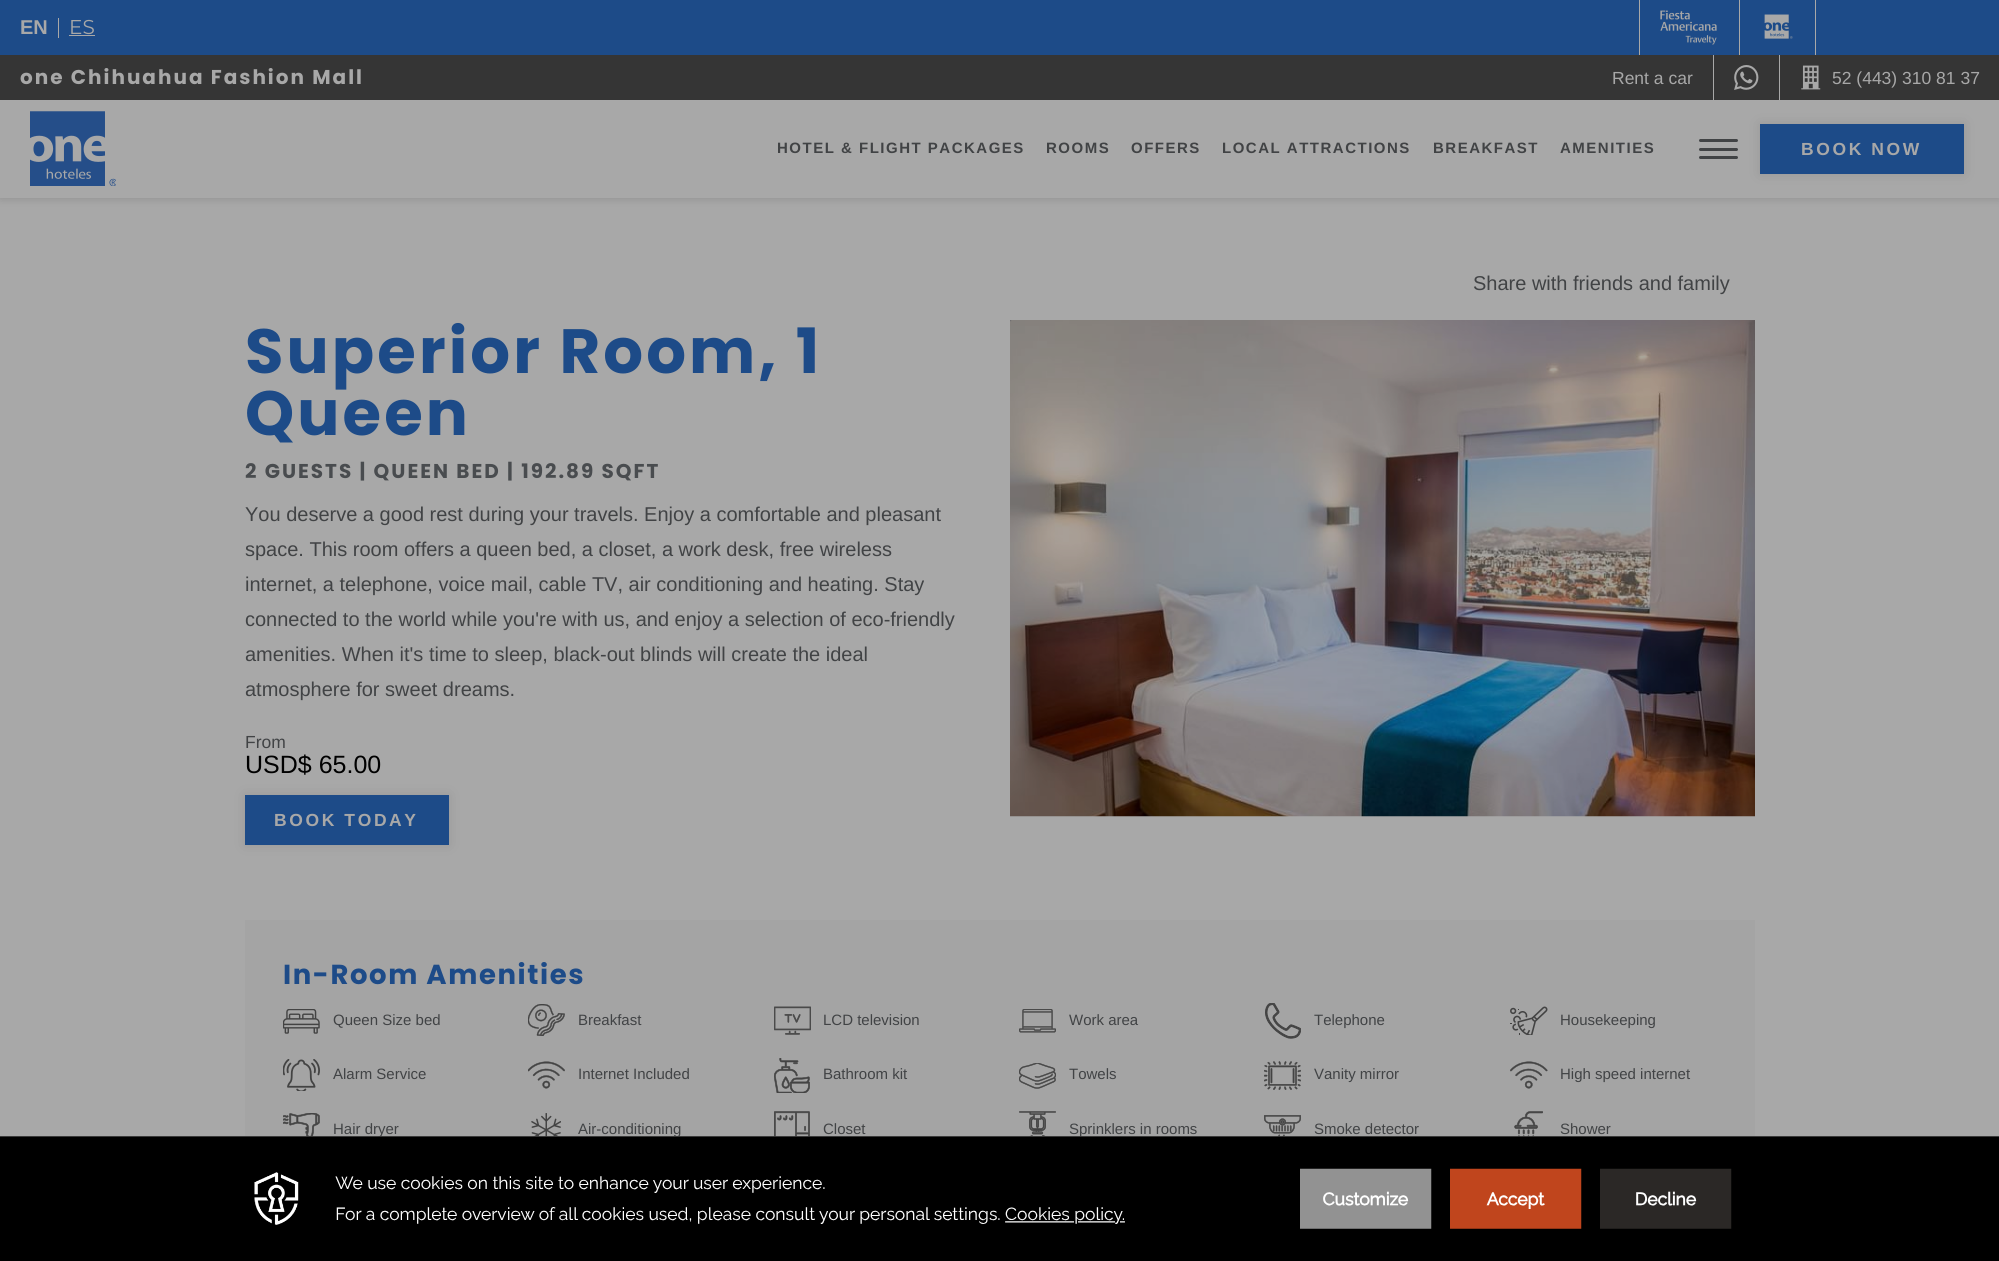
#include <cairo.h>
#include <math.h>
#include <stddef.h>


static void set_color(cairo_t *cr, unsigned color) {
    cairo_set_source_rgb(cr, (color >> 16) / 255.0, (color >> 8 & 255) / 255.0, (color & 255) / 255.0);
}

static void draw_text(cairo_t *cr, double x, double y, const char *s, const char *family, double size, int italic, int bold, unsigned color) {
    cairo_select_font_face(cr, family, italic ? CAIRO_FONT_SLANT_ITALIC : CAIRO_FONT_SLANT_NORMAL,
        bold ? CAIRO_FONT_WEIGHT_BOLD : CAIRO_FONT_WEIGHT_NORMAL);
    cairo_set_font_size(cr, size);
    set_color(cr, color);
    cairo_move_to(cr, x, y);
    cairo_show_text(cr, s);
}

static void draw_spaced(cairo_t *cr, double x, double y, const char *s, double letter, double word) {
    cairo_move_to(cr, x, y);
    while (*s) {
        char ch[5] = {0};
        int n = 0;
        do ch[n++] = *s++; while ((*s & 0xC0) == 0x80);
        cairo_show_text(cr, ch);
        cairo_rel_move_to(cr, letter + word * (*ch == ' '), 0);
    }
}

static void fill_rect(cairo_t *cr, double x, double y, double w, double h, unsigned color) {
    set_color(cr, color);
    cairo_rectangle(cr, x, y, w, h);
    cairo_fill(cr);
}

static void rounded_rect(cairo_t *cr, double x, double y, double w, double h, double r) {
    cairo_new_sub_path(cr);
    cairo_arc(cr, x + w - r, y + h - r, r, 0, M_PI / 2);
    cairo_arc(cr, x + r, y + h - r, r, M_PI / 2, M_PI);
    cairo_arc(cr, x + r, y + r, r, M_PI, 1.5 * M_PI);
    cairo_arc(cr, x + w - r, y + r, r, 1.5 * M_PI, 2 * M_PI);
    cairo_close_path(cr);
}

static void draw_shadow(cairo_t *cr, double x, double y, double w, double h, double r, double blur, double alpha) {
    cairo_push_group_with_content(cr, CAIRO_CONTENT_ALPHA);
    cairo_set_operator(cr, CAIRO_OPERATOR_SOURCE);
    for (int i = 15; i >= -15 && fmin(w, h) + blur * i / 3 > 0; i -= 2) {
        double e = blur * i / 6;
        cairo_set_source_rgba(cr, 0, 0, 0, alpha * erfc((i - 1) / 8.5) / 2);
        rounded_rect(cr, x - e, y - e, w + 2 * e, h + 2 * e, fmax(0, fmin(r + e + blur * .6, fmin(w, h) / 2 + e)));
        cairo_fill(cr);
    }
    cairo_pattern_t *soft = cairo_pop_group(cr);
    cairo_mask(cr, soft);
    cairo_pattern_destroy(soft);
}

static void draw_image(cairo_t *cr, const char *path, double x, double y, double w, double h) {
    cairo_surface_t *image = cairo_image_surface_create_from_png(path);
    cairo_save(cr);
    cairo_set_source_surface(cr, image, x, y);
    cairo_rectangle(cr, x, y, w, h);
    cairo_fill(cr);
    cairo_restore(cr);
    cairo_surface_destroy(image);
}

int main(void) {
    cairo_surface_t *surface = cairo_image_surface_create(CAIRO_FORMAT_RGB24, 1999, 1261);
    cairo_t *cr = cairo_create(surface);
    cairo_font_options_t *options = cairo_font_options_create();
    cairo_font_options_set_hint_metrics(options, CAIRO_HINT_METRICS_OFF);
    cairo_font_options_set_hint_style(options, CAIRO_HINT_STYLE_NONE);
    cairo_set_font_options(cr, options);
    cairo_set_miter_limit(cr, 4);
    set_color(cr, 0xA8A8A8);
    cairo_paint(cr);
    set_color(cr, 0x000000);
    draw_shadow(cr, 0, 0, 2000, 198, 0, 5, 0.16);
    fill_rect(cr, 0, 100, 1999, 98, 0xA8A8A8);
    fill_rect(cr, 0, 0, 1999, 55, 0x1D4B88);
    draw_text(cr, 20, 34, "EN", "Liberation Sans", 20, 0, 1, 0xA8A8A8);
    fill_rect(cr, 58, 18, 1, 20, 0xA8A8A8);
    draw_text(cr, 69, 34, "ES", "Montserrat", 20, 0, 0, 0xA8A8A8);
    fill_rect(cr, 69, 35, 26, 1, 0xA8A8A8);
    fill_rect(cr, 1639, 0, 1, 55, 0xA8A8A8);
    draw_image(cr, "assets/img1.png", 1660, 10, 57, 35);
    fill_rect(cr, 1739, 0, 1, 55, 0xA8A8A8);
    draw_image(cr, "assets/img2.png", 1764, 14, 29, 25);
    fill_rect(cr, 1815, 0, 1, 55, 0xA8A8A8);
    fill_rect(cr, 0, 55, 1999, 45, 0x353535);
    cairo_select_font_face(cr, "Poppins", CAIRO_FONT_SLANT_NORMAL, CAIRO_FONT_WEIGHT_BOLD);
    set_color(cr, 0xA8A8A8);
    draw_spaced(cr, 20, 84, "one Chihuahua Fashion Mall", 2, 0);
    draw_text(cr, 1612, 84, "Rent a car", "Liberation Sans", 17.5, 0, 0, 0xA8A8A8);
    fill_rect(cr, 1713, 55, 1, 45, 0xA8A8A8);
    draw_image(cr, "assets/img3.png", 1734, 65, 25, 25);
    fill_rect(cr, 1779, 55, 1, 45, 0xA8A8A8);
    draw_image(cr, "assets/img4.png", 1801, 65, 20, 25);
    draw_text(cr, 1832, 84, "52 (443) 310 81 37", "Liberation Sans", 17.5, 0, 0, 0xA8A8A8);
    draw_image(cr, "assets/img5.png", 30, 111, 86, 75);
    cairo_select_font_face(cr, "Liberation Sans", CAIRO_FONT_SLANT_NORMAL, CAIRO_FONT_WEIGHT_BOLD);
    cairo_set_font_size(cr, 15);
    set_color(cr, 0x414345);
    draw_spaced(cr, 777, 153, "HOTEL & FLIGHT PACKAGES", 1.5, 0);
    draw_spaced(cr, 1046, 153, "ROOMS", 1.5, 0);
    draw_spaced(cr, 1131, 153, "OFFERS", 1.5, 0);
    draw_spaced(cr, 1222, 153, "LOCAL ATTRACTIONS", 1.5, 0);
    draw_spaced(cr, 1433, 153, "BREAKFAST", 1.5, 0);
    draw_spaced(cr, 1560, 153, "AMENITIES", 1.5, 0);
    rounded_rect(cr, 1699, 139, 39, 3, 1.5);
    cairo_fill(cr);
    rounded_rect(cr, 1699, 148, 39, 3, 1.5);
    cairo_fill(cr);
    rounded_rect(cr, 1699, 156, 39, 3, 1.5);
    cairo_fill(cr);
    set_color(cr, 0x000000);
    draw_shadow(cr, 1760, 124, 204, 50, 0, 6, 0.1);
    fill_rect(cr, 1760, 124, 204, 50, 0x1D4B88);
    cairo_set_font_size(cr, 17.5);
    set_color(cr, 0xA8A8A8);
    draw_spaced(cr, 1801, 155, "BOOK NOW", 2.6, 0);
    draw_text(cr, 1473, 290, "Share with friends and family", "Liberation Sans", 20, 0, 0, 0x414345);
    cairo_select_font_face(cr, "Poppins", CAIRO_FONT_SLANT_NORMAL, CAIRO_FONT_WEIGHT_BOLD);
    cairo_set_font_size(cr, 62.5);
    set_color(cr, 0x1D4B88);
    draw_spaced(cr, 245, 373, "Superior Room, 1", 3.1, 0);
    draw_spaced(cr, 245, 435, "Queen", 3.1, 0);
    cairo_set_font_size(cr, 20);
    set_color(cr, 0x494C4F);
    draw_spaced(cr, 245, 478, "2 GUESTS | QUEEN BED | 192.89 SQFT", 2, 0);
    draw_text(cr, 245, 521, "You deserve a good rest during your travels. Enjoy a comfortable and pleasant", "Liberation Sans", 20, 0, 0, 0x414345);
    draw_text(cr, 245, 556, "space. This room offers a queen bed, a closet, a work desk, free wireless", "Liberation Sans", 20, 0, 0, 0x414345);
    draw_text(cr, 245, 591, "internet, a telephone, voice mail, cable TV, air conditioning and heating. Stay", "Liberation Sans", 20, 0, 0, 0x414345);
    draw_text(cr, 245, 626, "connected to the world while you're with us, and enjoy a selection of eco-friendly", "Liberation Sans", 20, 0, 0, 0x414345);
    draw_text(cr, 245, 661, "amenities. When it's time to sleep, black-out blinds will create the ideal", "Liberation Sans", 20, 0, 0, 0x414345);
    draw_text(cr, 245, 696, "atmosphere for sweet dreams.", "Liberation Sans", 20, 0, 0, 0x414345);
    draw_text(cr, 245, 748, "From", "Liberation Sans", 17.5, 0, 0, 0x414345);
    draw_text(cr, 245, 773, "USD$ 65.00", "Liberation Sans", 25, 0, 0, 0x000000);
    set_color(cr, 0x000000);
    draw_shadow(cr, 245, 795, 204, 50, 0, 6, 0.1);
    fill_rect(cr, 245, 795, 204, 50, 0x1D4B88);
    cairo_select_font_face(cr, "Liberation Sans", CAIRO_FONT_SLANT_NORMAL, CAIRO_FONT_WEIGHT_BOLD);
    cairo_set_font_size(cr, 17.5);
    set_color(cr, 0xA8A8A8);
    draw_spaced(cr, 274, 826, "BOOK TODAY", 2.6, 0);
    draw_image(cr, "assets/img6.png", 1010, 320, 745, 497);
    draw_image(cr, "assets/img7.png", 1010, 320, 2, 2);
    fill_rect(cr, 245, 920, 1510, 217, 0xA4A4A4);
    cairo_select_font_face(cr, "Poppins", CAIRO_FONT_SLANT_NORMAL, CAIRO_FONT_WEIGHT_BOLD);
    cairo_set_font_size(cr, 27.5);
    set_color(cr, 0x1D4B88);
    draw_spaced(cr, 283, 984, "In-Room Amenities", 1.6, 0);
    draw_image(cr, "assets/img8.png", 283, 1009, 37, 25);
    draw_text(cr, 333, 1025, "Queen Size bed", "Liberation Sans", 15, 0, 0, 0x414345);
    draw_image(cr, "assets/img9.png", 528, 1004, 37, 32);
    draw_text(cr, 578, 1025, "Breakfast", "Liberation Sans", 15, 0, 0, 0x414345);
    draw_image(cr, "assets/img10.png", 774, 1006, 37, 29);
    draw_text(cr, 823, 1025, "LCD television", "Liberation Sans", 15, 0, 0, 0x414345);
    draw_image(cr, "assets/img11.png", 1019, 1009, 37, 24);
    draw_text(cr, 1069, 1025, "Work area", "Liberation Sans", 15, 0, 0, 0x414345);
    draw_image(cr, "assets/img12.png", 1265, 1003, 36, 36);
    draw_text(cr, 1314, 1025, "Telephone", "Liberation Sans", 15, 0, 0, 0x414345);
    draw_image(cr, "assets/img13.png", 1510, 1006, 38, 29);
    draw_text(cr, 1560, 1025, "Housekeeping", "Liberation Sans", 15, 0, 0, 0x414345);
    draw_image(cr, "assets/img14.png", 283, 1059, 37, 32);
    draw_text(cr, 333, 1079, "Alarm Service", "Liberation Sans", 15, 0, 0, 0x414345);
    draw_image(cr, "assets/img15.png", 528, 1061, 37, 28);
    draw_text(cr, 578, 1079, "Internet Included", "Liberation Sans", 15, 0, 0, 0x414345);
    draw_image(cr, "assets/img16.png", 774, 1058, 36, 35);
    draw_text(cr, 823, 1079, "Bathroom kit", "Liberation Sans", 15, 0, 0, 0x414345);
    draw_image(cr, "assets/img17.png", 1019, 1063, 37, 26);
    draw_text(cr, 1069, 1079, "Towels", "Liberation Sans", 15, 0, 0, 0x414345);
    draw_image(cr, "assets/img18.png", 1264, 1061, 37, 29);
    draw_text(cr, 1314, 1079, "Vanity mirror", "Liberation Sans", 15, 0, 0, 0x414345);
    draw_image(cr, "assets/img19.png", 1510, 1061, 38, 28);
    draw_text(cr, 1560, 1079, "High speed internet", "Liberation Sans", 15, 0, 0, 0x414345);
    draw_image(cr, "assets/img20.png", 283, 1113, 37, 24);
    draw_text(cr, 333, 1134, "Hair dryer", "Liberation Sans", 15, 0, 0, 0x414345);
    draw_image(cr, "assets/img21.png", 531, 1113, 30, 24);
    draw_text(cr, 578, 1134, "Air-conditioning", "Liberation Sans", 15, 0, 0, 0x414345);
    draw_image(cr, "assets/img22.png", 774, 1111, 36, 26);
    draw_text(cr, 823, 1134, "Closet", "Liberation Sans", 15, 0, 0, 0x414345);
    draw_image(cr, "assets/img23.png", 1019, 1111, 37, 26);
    draw_text(cr, 1069, 1134, "Sprinklers in rooms", "Liberation Sans", 15, 0, 0, 0x414345);
    draw_image(cr, "assets/img24.png", 1264, 1115, 37, 22);
    draw_text(cr, 1314, 1134, "Smoke detector", "Liberation Sans", 15, 0, 0, 0x414345);
    draw_image(cr, "assets/img25.png", 1514, 1111, 29, 26);
    draw_text(cr, 1560, 1134, "Shower", "Liberation Sans", 15, 0, 0, 0x414345);
    draw_image(cr, "assets/img26.png", 0, 1136, 1999, 125);
    cairo_surface_write_to_png(surface, "output.png");
    cairo_font_options_destroy(options);
    cairo_destroy(cr);
    cairo_surface_destroy(surface);
    return 0;
}
